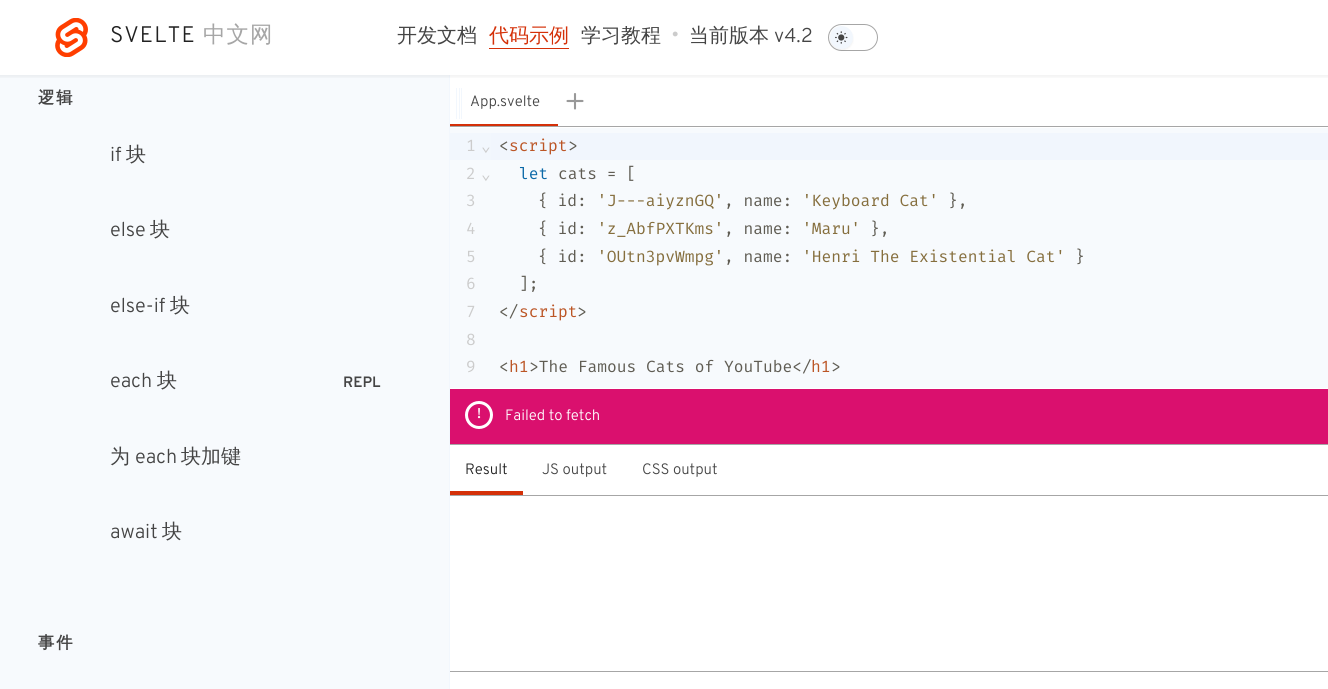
#include <cairo.h>
#include <math.h>
#include <stddef.h>


static void set_color(cairo_t *cr, unsigned color) {
    cairo_set_source_rgb(cr, (color >> 16) / 255.0, (color >> 8 & 255) / 255.0, (color & 255) / 255.0);
}

static void draw_text(cairo_t *cr, double x, double y, const char *s, const char *family, double size, int italic, int bold, unsigned color) {
    cairo_select_font_face(cr, family, italic ? CAIRO_FONT_SLANT_ITALIC : CAIRO_FONT_SLANT_NORMAL,
        bold ? CAIRO_FONT_WEIGHT_BOLD : CAIRO_FONT_WEIGHT_NORMAL);
    cairo_set_font_size(cr, size);
    set_color(cr, color);
    cairo_move_to(cr, x, y);
    cairo_show_text(cr, s);
}

static void draw_spaced(cairo_t *cr, double x, double y, const char *s, double letter, double word) {
    cairo_move_to(cr, x, y);
    while (*s) {
        char ch[5] = {0};
        int n = 0;
        do ch[n++] = *s++; while ((*s & 0xC0) == 0x80);
        cairo_show_text(cr, ch);
        cairo_rel_move_to(cr, letter + word * (*ch == ' '), 0);
    }
}

static void fill_rect(cairo_t *cr, double x, double y, double w, double h, unsigned color) {
    set_color(cr, color);
    cairo_rectangle(cr, x, y, w, h);
    cairo_fill(cr);
}

static void rounded_rect(cairo_t *cr, double x, double y, double w, double h, double r) {
    cairo_new_sub_path(cr);
    cairo_arc(cr, x + w - r, y + h - r, r, 0, M_PI / 2);
    cairo_arc(cr, x + r, y + h - r, r, M_PI / 2, M_PI);
    cairo_arc(cr, x + r, y + r, r, M_PI, 1.5 * M_PI);
    cairo_arc(cr, x + w - r, y + r, r, 1.5 * M_PI, 2 * M_PI);
    cairo_close_path(cr);
}

static void draw_shadow(cairo_t *cr, double x, double y, double w, double h, double r, double blur, double alpha) {
    cairo_push_group_with_content(cr, CAIRO_CONTENT_ALPHA);
    cairo_set_operator(cr, CAIRO_OPERATOR_SOURCE);
    for (int i = 15; i >= -15 && fmin(w, h) + blur * i / 3 > 0; i -= 2) {
        double e = blur * i / 6;
        cairo_set_source_rgba(cr, 0, 0, 0, alpha * erfc((i - 1) / 8.5) / 2);
        rounded_rect(cr, x - e, y - e, w + 2 * e, h + 2 * e, fmax(0, fmin(r + e + blur * .6, fmin(w, h) / 2 + e)));
        cairo_fill(cr);
    }
    cairo_pattern_t *soft = cairo_pop_group(cr);
    cairo_mask(cr, soft);
    cairo_pattern_destroy(soft);
}

static void draw_image(cairo_t *cr, const char *path, double x, double y, double w, double h) {
    cairo_surface_t *image = cairo_image_surface_create_from_png(path);
    cairo_save(cr);
    cairo_set_source_surface(cr, image, x, y);
    cairo_rectangle(cr, x, y, w, h);
    cairo_fill(cr);
    cairo_restore(cr);
    cairo_surface_destroy(image);
}

int main(void) {
    cairo_surface_t *surface = cairo_image_surface_create(CAIRO_FORMAT_RGB24, 1328, 689);
    cairo_t *cr = cairo_create(surface);
    cairo_font_options_t *options = cairo_font_options_create();
    cairo_font_options_set_hint_metrics(options, CAIRO_HINT_METRICS_OFF);
    cairo_font_options_set_hint_style(options, CAIRO_HINT_STYLE_NONE);
    cairo_set_font_options(cr, options);
    cairo_set_miter_limit(cr, 4);
    cairo_pattern_t *gradient;
    set_color(cr, 0xFFFFFF);
    cairo_paint(cr);
    draw_image(cr, "assets/img1.png", 55, 18, 33, 39);
    cairo_select_font_face(cr, "Overpass Light", CAIRO_FONT_SLANT_NORMAL, CAIRO_FONT_WEIGHT_NORMAL);
    cairo_set_font_size(cr, 22.5);
    set_color(cr, 0x212121);
    draw_spaced(cr, 110, 42, "SVELTE", 1, 0);
    cairo_select_font_face(cr, "WenQuanYi Zen Hei Medium", CAIRO_FONT_SLANT_NORMAL, CAIRO_FONT_WEIGHT_NORMAL);
    set_color(cr, 0xA6A6A6);
    draw_spaced(cr, 203, 42, "中文网", 1, 0);
    draw_text(cr, 397, 42, "开发文档", "WenQuanYi Zen Hei Medium", 20, 0, 0, 0x454545);
    fill_rect(cr, 489, 48, 80, 1, 0xD43008);
    draw_text(cr, 489, 42, "代码示例", "WenQuanYi Zen Hei Medium", 20, 0, 0, 0xD43008);
    draw_text(cr, 581, 42, "学习教程", "WenQuanYi Zen Hei Medium", 20, 0, 0, 0x454545);
    draw_text(cr, 671, 41, "•", "Overpass", 20, 0, 0, 0xCCCCCC);
    draw_text(cr, 689, 42, "当前版本", "WenQuanYi Zen Hei Medium", 20, 0, 0, 0x454545);
    draw_text(cr, 774, 42, "v4.2", "Overpass Light", 20, 0, 0, 0x454545);
    rounded_rect(cr, 828.5, 24.5, 49, 26, 13);
    set_color(cr, 0xA6A6A6);
    cairo_set_line_width(cr, 1);
    cairo_stroke(cr);
    set_color(cr, 0x000000);
    draw_shadow(cr, 830, 28, 23, 22, 11, 1, 0.06);
    set_color(cr, 0xF2F7FD);
    cairo_arc(cr, 841.5, 37.5, 11.5, 0, 2 * M_PI);
    cairo_fill(cr);
    draw_image(cr, "assets/img2.png", 835, 31, 13, 13);
    fill_rect(cr, 0, 75, 449, 614, 0xF7FAFD);
    fill_rect(cr, 449, 75, 1, 614, 0xF2F7FD);
    gradient = cairo_pattern_create_linear(664, 75, 664, 80);
    cairo_pattern_add_color_stop_rgba(gradient, 0, 0, 0, 0, 0.05);
    cairo_pattern_add_color_stop_rgba(gradient, 1, 0, 0, 0, 0);
    cairo_set_source(cr, gradient);
    cairo_pattern_destroy(gradient);
    cairo_rectangle(cr, 0, 75, 1328, 3);
    cairo_fill(cr);
    cairo_select_font_face(cr, "WenQuanYi Zen Hei", CAIRO_FONT_SLANT_NORMAL, CAIRO_FONT_WEIGHT_BOLD);
    cairo_set_font_size(cr, 16.25);
    set_color(cr, 0x454545);
    draw_spaced(cr, 38, 103, "逻辑", 2, 0);
    draw_text(cr, 110, 161, "if", "Overpass Light", 20, 0, 0, 0x454545);
    draw_text(cr, 126, 161, "块", "WenQuanYi Zen Hei Medium", 20, 0, 0, 0x454545);
    draw_text(cr, 110, 236, "else", "Overpass Light", 20, 0, 0, 0x454545);
    draw_text(cr, 150, 236, "块", "WenQuanYi Zen Hei Medium", 20, 0, 0, 0x454545);
    draw_text(cr, 110, 312, "else-if", "Overpass Light", 20, 0, 0, 0x454545);
    draw_text(cr, 170, 312, "块", "WenQuanYi Zen Hei Medium", 20, 0, 0, 0x454545);
    draw_text(cr, 110, 387, "each", "Overpass Light", 20, 0, 0, 0x454545);
    draw_text(cr, 157, 387, "块", "WenQuanYi Zen Hei Medium", 20, 0, 0, 0x454545);
    draw_text(cr, 343, 387, "REPL", "Overpass SemiBold", 15, 0, 0, 0x454545);
    draw_text(cr, 110, 463, "为", "WenQuanYi Zen Hei Medium", 20, 0, 0, 0x454545);
    draw_text(cr, 135, 463, "each", "Overpass Light", 20, 0, 0, 0x454545);
    draw_text(cr, 181, 463, "块加键", "WenQuanYi Zen Hei Medium", 20, 0, 0, 0x454545);
    draw_text(cr, 110, 538, "await", "Overpass Light", 20, 0, 0, 0x454545);
    draw_text(cr, 162, 538, "块", "WenQuanYi Zen Hei Medium", 20, 0, 0, 0x454545);
    cairo_select_font_face(cr, "WenQuanYi Zen Hei", CAIRO_FONT_SLANT_NORMAL, CAIRO_FONT_WEIGHT_BOLD);
    cairo_set_font_size(cr, 16.25);
    draw_spaced(cr, 38, 648, "事件", 2, 0);
    fill_rect(cr, 450, 126, 878, 1, 0xA6A6A6);
    fill_rect(cr, 450, 124, 108, 2, 0xD43008);
    fill_rect(cr, 456, 88, 1, 31, 0xF2F7FD);
    fill_rect(cr, 459, 88, 1, 31, 0xF2F7FD);
    fill_rect(cr, 461, 88, 1, 31, 0xF2F7FD);
    draw_text(cr, 470, 106, "App.svelte", "Overpass Light", 15, 0, 0, 0x454545);
    cairo_new_path(cr);
    cairo_move_to(cr, 575, 94);
    cairo_line_to(cr, 575, 108.5);
    cairo_move_to(cr, 567.5, 101);
    cairo_line_to(cr, 582.5, 101);
    set_color(cr, 0x999999);
    cairo_set_line_width(cr, 2.1);
    cairo_set_line_cap(cr, CAIRO_LINE_CAP_ROUND);
    cairo_set_line_join(cr, CAIRO_LINE_JOIN_ROUND);
    cairo_stroke(cr);
    fill_rect(cr, 450, 128, 878, 260, 0xF7FAFD);
    fill_rect(cr, 450, 133, 41, 27, 0xF2F7FD);
    draw_text(cr, 466, 151, "1", "Fira Mono", 16.25, 0, 0, 0xCCCCCC);
    draw_text(cr, 466, 179, "2", "Fira Mono", 16.25, 0, 0, 0xCCCCCC);
    draw_text(cr, 466, 206, "3", "Fira Mono", 16.25, 0, 0, 0xCCCCCC);
    draw_text(cr, 466, 234, "4", "Fira Mono", 16.25, 0, 0, 0xCCCCCC);
    draw_text(cr, 466, 262, "5", "Fira Mono", 16.25, 0, 0, 0xCCCCCC);
    draw_text(cr, 466, 289, "6", "Fira Mono", 16.25, 0, 0, 0xCCCCCC);
    draw_text(cr, 466, 317, "7", "Fira Mono", 16.25, 0, 0, 0xCCCCCC);
    draw_text(cr, 466, 345, "8", "Fira Mono", 16.25, 0, 0, 0xCCCCCC);
    draw_text(cr, 466, 372, "9", "Fira Mono", 16.25, 0, 0, 0xCCCCCC);
    draw_text(cr, 481, 151, "⌄", "DejaVu Sans Mono", 16.25, 0, 0, 0xCCCCCC);
    draw_text(cr, 481, 179, "⌄", "DejaVu Sans Mono", 16.25, 0, 0, 0xCCCCCC);
    fill_rect(cr, 491, 133, 837, 27, 0xF1F6FD);
    draw_text(cr, 499, 151, "<", "Fira Mono", 16.25, 0, 0, 0x5F5C53);
    draw_text(cr, 509, 151, "script", "Fira Mono", 16.25, 0, 0, 0xBB5525);
    draw_text(cr, 568, 151, ">", "Fira Mono", 16.25, 0, 0, 0x5F5C53);
    draw_text(cr, 519, 179, "let", "Fira Mono", 16.25, 0, 0, 0x0B69A8);
    draw_text(cr, 558, 179, "cats = [", "Fira Mono", 16.25, 0, 0, 0x5F5C53);
    draw_text(cr, 538, 206, "{ id:", "Fira Mono", 16.25, 0, 0, 0x5F5C53);
    draw_text(cr, 597, 206, "'J---aiyznGQ'", "Fira Mono", 16.25, 0, 0, 0x856E3D);
    draw_text(cr, 724, 206, ", name:", "Fira Mono", 16.25, 0, 0, 0x5F5C53);
    draw_text(cr, 802, 206, "'Keyboard Cat'", "Fira Mono", 16.25, 0, 0, 0x856E3D);
    draw_text(cr, 948, 206, "},", "Fira Mono", 16.25, 0, 0, 0x5F5C53);
    draw_text(cr, 538, 234, "{ id:", "Fira Mono", 16.25, 0, 0, 0x5F5C53);
    draw_text(cr, 597, 234, "'z_AbfPXTKms'", "Fira Mono", 16.25, 0, 0, 0x856E3D);
    draw_text(cr, 724, 234, ", name:", "Fira Mono", 16.25, 0, 0, 0x5F5C53);
    draw_text(cr, 802, 234, "'Maru'", "Fira Mono", 16.25, 0, 0, 0x856E3D);
    draw_text(cr, 870, 234, "},", "Fira Mono", 16.25, 0, 0, 0x5F5C53);
    draw_text(cr, 538, 262, "{ id:", "Fira Mono", 16.25, 0, 0, 0x5F5C53);
    draw_text(cr, 597, 262, "'OUtn3pvWmpg'", "Fira Mono", 16.25, 0, 0, 0x856E3D);
    draw_text(cr, 724, 262, ", name:", "Fira Mono", 16.25, 0, 0, 0x5F5C53);
    draw_text(cr, 802, 262, "'Henri The Existential Cat'", "Fira Mono", 16.25, 0, 0, 0x856E3D);
    draw_text(cr, 1075, 262, "}", "Fira Mono", 16.25, 0, 0, 0x5F5C53);
    draw_text(cr, 519, 289, "];", "Fira Mono", 16.25, 0, 0, 0x5F5C53);
    draw_text(cr, 499, 317, "</", "Fira Mono", 16.25, 0, 0, 0x5F5C53);
    draw_text(cr, 519, 317, "script", "Fira Mono", 16.25, 0, 0, 0xBB5525);
    draw_text(cr, 577, 317, ">", "Fira Mono", 16.25, 0, 0, 0x5F5C53);
    draw_text(cr, 499, 372, "<", "Fira Mono", 16.25, 0, 0, 0x5F5C53);
    draw_text(cr, 509, 372, "h1", "Fira Mono", 16.25, 0, 0, 0xBB5525);
    draw_text(cr, 529, 372, ">The Famous Cats of YouTube</", "Fira Mono", 16.25, 0, 0, 0x5F5C53);
    draw_text(cr, 811, 372, "h1", "Fira Mono", 16.25, 0, 0, 0xBB5525);
    draw_text(cr, 831, 372, ">", "Fira Mono", 16.25, 0, 0, 0x5F5C53);
    fill_rect(cr, 450, 389, 878, 55, 0xDA106E);
    cairo_new_path(cr);
    cairo_arc(cr, 479, 415, 12.5, 0, 2 * M_PI);
    set_color(cr, 0xFFFFFF);
    cairo_set_line_width(cr, 3);
    cairo_set_line_cap(cr, CAIRO_LINE_CAP_BUTT);
    cairo_set_line_join(cr, CAIRO_LINE_JOIN_MITER);
    cairo_stroke(cr);
    draw_text(cr, 477, 418, "!", "Overpass SemiBold", 14, 0, 0, 0xFFFFFF);
    draw_text(cr, 505, 420, "Failed to fetch", "Overpass Light", 15, 0, 0, 0xFFFFFF);
    fill_rect(cr, 450, 444, 878, 1, 0xA6A6A6);
    fill_rect(cr, 450, 495, 878, 1, 0xA6A6A6);
    fill_rect(cr, 450, 491, 73, 4, 0xD43008);
    draw_text(cr, 465, 474, "Result", "Overpass Light", 15, 0, 0, 0x212121);
    draw_text(cr, 542, 474, "JS output", "Overpass Light", 15, 0, 0, 0x454545);
    draw_text(cr, 642, 474, "CSS output", "Overpass Light", 15, 0, 0, 0x454545);
    fill_rect(cr, 450, 671, 878, 1, 0xA6A6A6);
    cairo_surface_write_to_png(surface, "output.png");
    cairo_font_options_destroy(options);
    cairo_destroy(cr);
    cairo_surface_destroy(surface);
    return 0;
}
